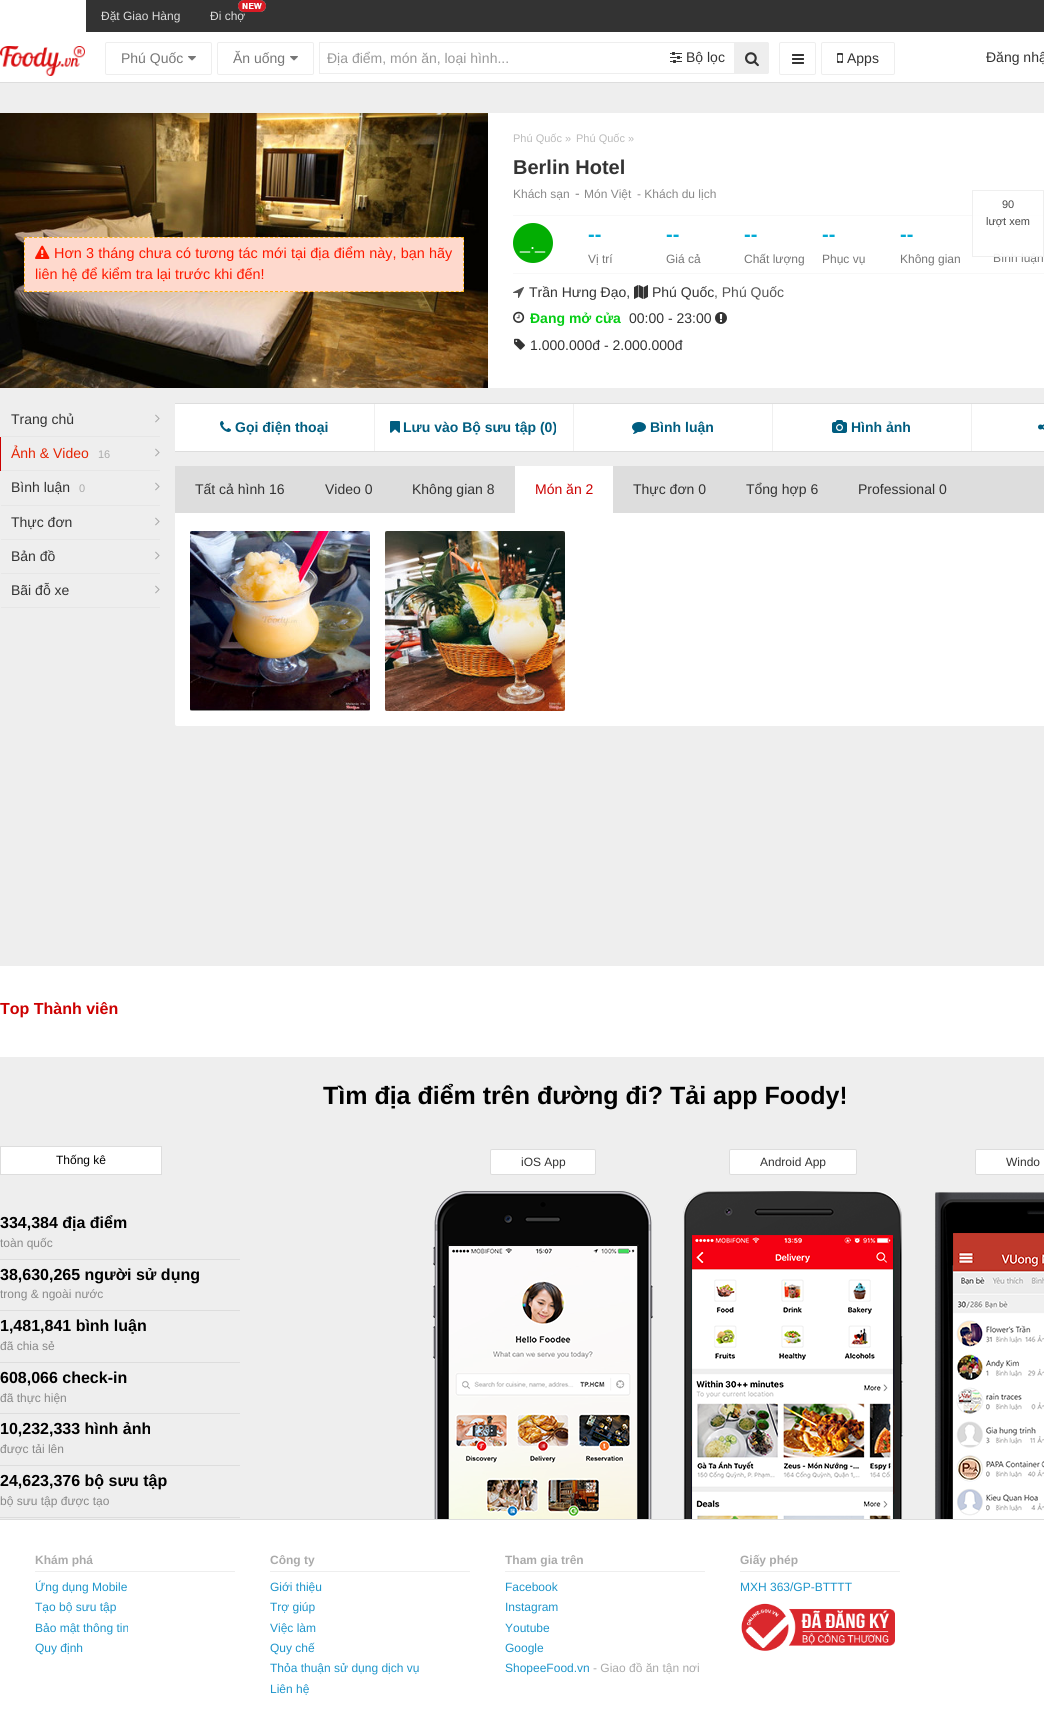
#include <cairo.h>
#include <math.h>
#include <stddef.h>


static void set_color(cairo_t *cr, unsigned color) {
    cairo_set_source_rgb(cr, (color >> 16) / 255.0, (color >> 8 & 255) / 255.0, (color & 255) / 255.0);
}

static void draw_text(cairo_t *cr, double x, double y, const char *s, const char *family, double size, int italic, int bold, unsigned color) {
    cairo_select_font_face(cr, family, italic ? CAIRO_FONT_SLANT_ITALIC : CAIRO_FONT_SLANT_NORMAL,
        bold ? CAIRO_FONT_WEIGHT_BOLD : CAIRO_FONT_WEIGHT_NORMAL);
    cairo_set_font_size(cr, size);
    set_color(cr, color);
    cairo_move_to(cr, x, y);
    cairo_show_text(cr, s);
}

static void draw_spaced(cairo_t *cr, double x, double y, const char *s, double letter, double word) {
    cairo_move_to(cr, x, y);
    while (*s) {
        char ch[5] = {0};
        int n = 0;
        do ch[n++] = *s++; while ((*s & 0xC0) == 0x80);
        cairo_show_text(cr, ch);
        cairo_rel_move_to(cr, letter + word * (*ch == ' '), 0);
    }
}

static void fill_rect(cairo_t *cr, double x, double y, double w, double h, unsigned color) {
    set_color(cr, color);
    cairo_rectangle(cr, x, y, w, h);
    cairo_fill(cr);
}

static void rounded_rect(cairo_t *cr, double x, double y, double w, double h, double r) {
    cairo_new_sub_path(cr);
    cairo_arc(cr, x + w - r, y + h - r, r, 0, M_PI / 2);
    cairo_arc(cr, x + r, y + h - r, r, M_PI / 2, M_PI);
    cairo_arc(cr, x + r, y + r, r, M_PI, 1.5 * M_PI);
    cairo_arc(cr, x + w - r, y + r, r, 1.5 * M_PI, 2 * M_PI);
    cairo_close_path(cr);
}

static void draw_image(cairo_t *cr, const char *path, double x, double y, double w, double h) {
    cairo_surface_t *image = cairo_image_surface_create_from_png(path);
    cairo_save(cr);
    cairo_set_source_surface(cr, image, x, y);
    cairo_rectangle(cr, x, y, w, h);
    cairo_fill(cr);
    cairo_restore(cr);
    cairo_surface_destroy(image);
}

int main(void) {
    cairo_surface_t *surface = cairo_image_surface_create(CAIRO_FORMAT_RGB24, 1044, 1709);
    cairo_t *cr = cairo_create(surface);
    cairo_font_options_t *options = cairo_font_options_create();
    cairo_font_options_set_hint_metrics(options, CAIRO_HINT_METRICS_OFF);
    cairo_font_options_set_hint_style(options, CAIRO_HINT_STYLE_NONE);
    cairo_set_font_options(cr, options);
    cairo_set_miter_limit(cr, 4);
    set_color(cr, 0xEEEEEE);
    cairo_paint(cr);
    fill_rect(cr, 86, 0, 958, 32, 0x333333);
    fill_rect(cr, 0, 0, 86, 32, 0xFFFFFF);
    draw_text(cr, 101, 20, "Đặt Giao Hàng", "Liberation Sans", 12, 0, 0, 0xDDDDDD);
    draw_text(cr, 210, 20, "Đi chợ", "Liberation Sans", 12, 0, 0, 0xDDDDDD);
    draw_image(cr, "assets/img1.png", 238, 0, 28, 12);
    fill_rect(cr, 0, 32, 1044, 50, 0xFFFFFF);
    fill_rect(cr, 0, 82, 1044, 1, 0xDDDDDD);
    draw_image(cr, "assets/img2.png", 0, 46, 85, 30);
    rounded_rect(cr, 105.5, 42.5, 106, 32, 1.5);
    set_color(cr, 0xEEEEEE);
    cairo_set_line_width(cr, 1);
    cairo_stroke(cr);
    draw_text(cr, 121, 63, "Phú Quốc", "Liberation Sans", 14, 0, 0, 0x777777);
    draw_image(cr, "assets/img3.png", 188, 56, 8, 5);
    rounded_rect(cr, 217.5, 42.5, 96, 32, 1.5);
    set_color(cr, 0xEEEEEE);
    cairo_stroke(cr);
    draw_text(cr, 233, 63, "Ăn uống", "Liberation Sans", 14, 0, 0, 0x777777);
    draw_image(cr, "assets/img3.png", 290, 56, 8, 5);
    fill_rect(cr, 319, 42, 415, 1, 0xEEEEEE);
    fill_rect(cr, 319, 73, 415, 1, 0xEEEEEE);
    fill_rect(cr, 319, 42, 1, 32, 0xEEEEEE);
    draw_text(cr, 327, 63, "Địa điểm, món ăn, loại hình...", "Liberation Sans", 14, 0, 0, 0x999999);
    draw_image(cr, "assets/img4.png", 670, 52, 12, 11);
    draw_text(cr, 686, 62, "Bộ lọc", "Liberation Sans", 14, 0, 0, 0x333333);
    set_color(cr, 0xEEEEEE);
    cairo_new_path(cr);
    cairo_move_to(cr, 734.5, 42.5);
    cairo_line_to(cr, 767, 42.5);
    cairo_curve_to(cr, 768, 42.5, 768.5, 43, 768.5, 44);
    cairo_line_to(cr, 768.5, 72);
    cairo_curve_to(cr, 768.5, 73, 768, 73.5, 767, 73.5);
    cairo_line_to(cr, 734.5, 73.5);
    cairo_close_path(cr);
    cairo_fill_preserve(cr);
    cairo_stroke(cr);
    draw_image(cr, "assets/img5.png", 745, 52, 14, 15);
    rounded_rect(cr, 779.5, 42.5, 36, 32, 1.5);
    cairo_stroke(cr);
    draw_image(cr, "assets/img6.png", 792, 54, 12, 10);
    rounded_rect(cr, 821.5, 42.5, 73, 32, 1.5);
    cairo_stroke(cr);
    draw_image(cr, "assets/img7.png", 837, 53, 6, 10);
    draw_text(cr, 847, 63, "Apps", "Liberation Sans", 14, 0, 0, 0x333333);
    draw_text(cr, 986, 62, "Đăng nhậ", "Liberation Sans", 14, 0, 0, 0x333333);
    fill_rect(cr, 488, 113, 556, 275, 0xFFFFFF);
    draw_image(cr, "assets/img8.png", 0, 113, 488, 275);
    fill_rect(cr, 24, 237, 440, 55, 0xFED9CD);
    cairo_new_path(cr);
    cairo_move_to(cr, 24, 237.5);
    cairo_line_to(cr, 464, 237.5);
    set_color(cr, 0xFAB319);
    cairo_set_dash(cr, (double[]){3, 2.02}, 2, 0);
    cairo_stroke(cr);
    cairo_new_path(cr);
    cairo_move_to(cr, 463.5, 237);
    cairo_line_to(cr, 463.5, 292);
    cairo_set_dash(cr, (double[]){3, 2.2}, 2, 0);
    cairo_stroke(cr);
    cairo_new_path(cr);
    cairo_move_to(cr, 24, 291.5);
    cairo_line_to(cr, 464, 291.5);
    cairo_set_dash(cr, (double[]){3, 2.02}, 2, 0);
    cairo_stroke(cr);
    cairo_new_path(cr);
    cairo_move_to(cr, 24.5, 237);
    cairo_line_to(cr, 24.5, 292);
    cairo_set_dash(cr, (double[]){3, 2.2}, 2, 0);
    cairo_stroke(cr);
    draw_image(cr, "assets/img9.png", 35, 245, 15, 14);
    cairo_set_font_size(cr, 14.4);
    set_color(cr, 0xFE1900);
    draw_spaced(cr, 54, 258, "Hơn 3 tháng chưa có tương tác mới tại địa điểm này, bạn hãy", 0, 0.25);
    draw_text(cr, 35, 279, "liên hệ để kiểm tra lại trước khi đến!", "Liberation Sans", 14.4, 0, 0, 0xFE1900);
    draw_text(cr, 513, 142, "Phú Quốc »", "Liberation Sans", 11, 0, 0, 0xBBBBBB);
    draw_text(cr, 576, 142, "Phú Quốc »", "Liberation Sans", 11, 0, 0, 0xBBBBBB);
    draw_text(cr, 513, 174, "Berlin Hotel", "Liberation Sans", 20, 0, 1, 0x333333);
    draw_text(cr, 513, 198, "Khách sạn", "Liberation Sans", 12, 0, 0, 0x888888);
    draw_text(cr, 575, 198, "-", "Liberation Sans", 14, 0, 0, 0x888888);
    draw_text(cr, 584, 198, "Món Việt", "Liberation Sans", 12, 0, 0, 0x888888);
    draw_text(cr, 637, 198, "- Khách du lịch", "Liberation Sans", 12, 0, 0, 0x888888);
    fill_rect(cr, 513, 215, 531, 1, 0xF8F8F8);
    fill_rect(cr, 513, 273, 531, 1, 0xF8F8F8);
    draw_text(cr, 588, 241, "--", "Liberation Sans", 20, 0, 1, 0x02AAD4);
    draw_text(cr, 588, 263, "Vị trí", "Liberation Sans", 12, 0, 0, 0x777777);
    draw_text(cr, 666, 241, "--", "Liberation Sans", 20, 0, 1, 0x02AAD4);
    draw_text(cr, 666, 263, "Giá cả", "Liberation Sans", 12, 0, 0, 0x777777);
    draw_text(cr, 744, 241, "--", "Liberation Sans", 20, 0, 1, 0x02AAD4);
    draw_text(cr, 744, 263, "Chất lượng", "Liberation Sans", 12, 0, 0, 0x777777);
    draw_text(cr, 822, 241, "--", "Liberation Sans", 20, 0, 1, 0x02AAD4);
    draw_text(cr, 822, 263, "Phục vụ", "Liberation Sans", 12, 0, 0, 0x777777);
    draw_text(cr, 900, 241, "--", "Liberation Sans", 20, 0, 1, 0x02AAD4);
    draw_text(cr, 900, 263, "Không gian", "Liberation Sans", 12, 0, 0, 0x777777);
    set_color(cr, 0x03AE03);
    cairo_new_path(cr);
    cairo_arc(cr, 533, 243, 20, 0, 2 * M_PI);
    cairo_fill(cr);
    draw_text(cr, 520, 249, "_._", "Liberation Sans", 18, 0, 0, 0xFFFFFF);
    draw_text(cr, 993, 262, "Bình luận", "Liberation Sans", 12, 0, 0, 0x777777);
    draw_image(cr, "assets/img10.png", 513, 287, 11, 11);
    draw_text(cr, 529, 297, "Trần Hưng Đạo,", "Liberation Sans", 14, 0, 0, 0x333333);
    draw_image(cr, "assets/img11.png", 634, 285, 14, 14);
    draw_text(cr, 652, 297, "Phú Quốc", "Liberation Sans", 14, 0, 0, 0x333333);
    draw_text(cr, 714, 297, ", Phú Quốc", "Liberation Sans", 14, 0, 0, 0x555555);
    draw_image(cr, "assets/img12.png", 513, 311, 12, 12);
    draw_text(cr, 530, 323, "Đang mở cửa", "Liberation Sans", 14, 0, 1, 0x05CD15);
    draw_text(cr, 629, 323, "00:00 - 23:00", "Liberation Sans", 14, 0, 0, 0x333333);
    draw_image(cr, "assets/img13.png", 715, 312, 12, 12);
    draw_image(cr, "assets/img14.png", 514, 338, 11, 12);
    draw_text(cr, 530, 350, "1.000.000đ - 2.000.000đ", "Liberation Sans", 14, 0, 0, 0x333333);
    cairo_set_source_rgba(cr, 1, 1, 1, 0.9);
    cairo_rectangle(cr, 972, 215, 72, 42);
    cairo_fill(cr);
    cairo_rectangle(cr, 972.5, 190.5, 71, 66);
    cairo_set_source_rgba(cr, 0.933, 0.933, 0.933, 0.9);
    cairo_set_dash(cr, NULL, 0, 0);
    cairo_stroke(cr);
    draw_text(cr, 1002, 208, "90", "Liberation Sans", 11, 0, 0, 0x474747);
    draw_text(cr, 986, 225, "lượt xem", "Liberation Sans", 11, 0, 0, 0x474747);
    fill_rect(cr, 0, 436, 160, 1, 0xE6E6E6);
    fill_rect(cr, 0, 436, 1, 1, 0xEEEEEE);
    draw_text(cr, 11, 424, "Trang chủ", "Liberation Sans", 14, 0, 0, 0x333333);
    draw_image(cr, "assets/img15.png", 155, 414, 5, 9);
    fill_rect(cr, 0, 470, 160, 1, 0xE6E6E6);
    fill_rect(cr, 0, 437, 1, 34, 0xCC0000);
    draw_text(cr, 11, 458, "Ảnh & Video", "Liberation Sans", 14, 0, 0, 0xE52402);
    draw_text(cr, 98, 458, "16", "Liberation Sans", 11, 0, 0, 0xAAAAAA);
    draw_image(cr, "assets/img15.png", 155, 448, 5, 9);
    fill_rect(cr, 0, 505, 160, 1, 0xE6E6E6);
    fill_rect(cr, 0, 505, 1, 1, 0xEEEEEE);
    draw_text(cr, 11, 492, "Bình luận", "Liberation Sans", 14, 0, 0, 0x333333);
    draw_text(cr, 79, 492, "0", "Liberation Sans", 11, 0, 0, 0xAAAAAA);
    draw_image(cr, "assets/img15.png", 155, 482, 5, 9);
    fill_rect(cr, 0, 539, 160, 1, 0xE6E6E6);
    fill_rect(cr, 0, 539, 1, 1, 0xEEEEEE);
    draw_text(cr, 11, 527, "Thực đơn", "Liberation Sans", 14, 0, 0, 0x333333);
    draw_image(cr, "assets/img15.png", 155, 517, 5, 9);
    fill_rect(cr, 0, 573, 160, 1, 0xE6E6E6);
    fill_rect(cr, 0, 573, 1, 1, 0xEEEEEE);
    draw_text(cr, 11, 561, "Bản đồ", "Liberation Sans", 14, 0, 0, 0x333333);
    draw_image(cr, "assets/img15.png", 155, 551, 5, 9);
    fill_rect(cr, 0, 607, 160, 1, 0xE6E6E6);
    fill_rect(cr, 0, 607, 1, 1, 0xEEEEEE);
    draw_text(cr, 11, 595, "Bãi đỗ xe", "Liberation Sans", 14, 0, 0, 0x333333);
    draw_image(cr, "assets/img15.png", 155, 585, 5, 9);
    fill_rect(cr, 175, 404, 869, 47, 0xFFFFFF);
    fill_rect(cr, 175, 403, 869, 1, 0xDDDDDD);
    fill_rect(cr, 175, 451, 869, 1, 0xDDDDDD);
    fill_rect(cr, 374, 404, 1, 47, 0xF0F0F0);
    draw_image(cr, "assets/img16.png", 220, 421, 11, 11);
    draw_text(cr, 235, 432, "Gọi điện thoại", "Liberation Sans", 14, 0, 1, 0x005D80);
    fill_rect(cr, 573, 404, 1, 47, 0xF0F0F0);
    draw_image(cr, "assets/img17.png", 390, 421, 10, 12);
    draw_text(cr, 403, 432, "Lưu vào Bộ sưu tập (0)", "Liberation Sans", 14, 0, 1, 0x005D80);
    fill_rect(cr, 772, 404, 1, 47, 0xF0F0F0);
    draw_image(cr, "assets/img18.png", 632, 422, 14, 12);
    draw_text(cr, 650, 432, "Bình luận", "Liberation Sans", 14, 0, 1, 0x005D80);
    fill_rect(cr, 971, 404, 1, 47, 0xF0F0F0);
    draw_image(cr, "assets/img19.png", 832, 420, 15, 13);
    draw_text(cr, 851, 432, "Hình ảnh", "Liberation Sans", 14, 0, 1, 0x005D80);
    draw_image(cr, "assets/img20.png", 1038, 424, 6, 6);
    set_color(cr, 0xFFFFFF);
    rounded_rect(cr, 175, 466, 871, 260, 2);
    cairo_fill(cr);
    fill_rect(cr, 190, 531, 180, 180, 0xEEEEEE);
    draw_image(cr, "assets/img21.png", 190, 531, 180, 180);
    fill_rect(cr, 385, 531, 180, 180, 0xEEEEEE);
    draw_image(cr, "assets/img22.png", 385, 531, 180, 180);
    fill_rect(cr, 175, 466, 869, 47, 0xDDDDDD);
    draw_text(cr, 195, 494, "Tất cả hình 16", "Liberation Sans", 14, 0, 0, 0x333333);
    draw_text(cr, 325, 494, "Video 0", "Liberation Sans", 14, 0, 0, 0x333333);
    draw_text(cr, 412, 494, "Không gian 8", "Liberation Sans", 14, 0, 0, 0x333333);
    fill_rect(cr, 515, 466, 98, 47, 0xFFFFFF);
    draw_text(cr, 535, 494, "Món ăn 2", "Liberation Sans", 14, 0, 0, 0xCC0000);
    draw_text(cr, 633, 494, "Thực đơn 0", "Liberation Sans", 14, 0, 0, 0x333333);
    draw_text(cr, 746, 494, "Tổng hợp 6", "Liberation Sans", 14, 0, 0, 0x333333);
    draw_text(cr, 858, 494, "Professional 0", "Liberation Sans", 14, 0, 0, 0x333333);
    fill_rect(cr, 0, 966, 1044, 91, 0xFFFFFF);
    draw_text(cr, 0, 1014, "Top Thành viên", "Liberation Sans", 16, 0, 1, 0xCC0000);
    draw_text(cr, 323, 1104, "Tìm địa điểm trên đường đi? Tải app Foody!", "Liberation Sans", 25, 0, 1, 0x000000);
    set_color(cr, 0xFFFFFF);
    cairo_rectangle(cr, 0.5, 1146.5, 161, 28);
    cairo_fill_preserve(cr);
    set_color(cr, 0xDDDDDD);
    cairo_stroke(cr);
    draw_text(cr, 56, 1164, "Thống kê", "Liberation Sans", 12, 0, 0, 0x000000);
    fill_rect(cr, 0, 1259, 240, 1, 0xDDDDDD);
    draw_text(cr, 0, 1228, "334,384 địa điểm", "Liberation Sans", 16, 0, 1, 0x000000);
    draw_text(cr, 0, 1247, "toàn quốc", "Liberation Sans", 12, 0, 0, 0x888888);
    fill_rect(cr, 0, 1310, 240, 1, 0xDDDDDD);
    draw_text(cr, 0, 1280, "38,630,265 người sử dụng", "Liberation Sans", 16, 0, 1, 0x000000);
    draw_text(cr, 0, 1298, "trong & ngoài nước", "Liberation Sans", 12, 0, 0, 0x888888);
    fill_rect(cr, 0, 1362, 240, 1, 0xDDDDDD);
    draw_text(cr, 0, 1331, "1,481,841 bình luận", "Liberation Sans", 16, 0, 1, 0x000000);
    draw_text(cr, 0, 1350, "đã chia sẻ", "Liberation Sans", 12, 0, 0, 0x888888);
    fill_rect(cr, 0, 1413, 240, 1, 0xDDDDDD);
    draw_text(cr, 0, 1383, "608,066 check-in", "Liberation Sans", 16, 0, 1, 0x000000);
    draw_text(cr, 0, 1402, "đã thực hiện", "Liberation Sans", 12, 0, 0, 0x888888);
    fill_rect(cr, 0, 1465, 240, 1, 0xDDDDDD);
    draw_text(cr, 0, 1434, "10,232,333 hình ảnh", "Liberation Sans", 16, 0, 1, 0x000000);
    draw_text(cr, 0, 1453, "được tải lên", "Liberation Sans", 12, 0, 0, 0x888888);
    fill_rect(cr, 0, 1517, 240, 1, 0xDDDDDD);
    draw_text(cr, 0, 1486, "24,623,376 bộ sưu tập", "Liberation Sans", 16, 0, 1, 0x000000);
    draw_text(cr, 0, 1505, "bộ sưu tập được tạo", "Liberation Sans", 12, 0, 0, 0x888888);
    set_color(cr, 0xFFFFFF);
    rounded_rect(cr, 490.5, 1149.5, 105, 25, 1.5);
    cairo_fill_preserve(cr);
    set_color(cr, 0xDDDDDD);
    cairo_stroke(cr);
    draw_text(cr, 521, 1166, "iOS App", "Liberation Sans", 12, 0, 0, 0x333333);
    draw_image(cr, "assets/img23.png", 433, 1191, 220, 328);
    set_color(cr, 0xFFFFFF);
    rounded_rect(cr, 729.5, 1149.5, 127, 25, 1.5);
    cairo_fill_preserve(cr);
    set_color(cr, 0xDDDDDD);
    cairo_stroke(cr);
    draw_text(cr, 760, 1166, "Android App", "Liberation Sans", 12, 0, 0, 0x333333);
    draw_image(cr, "assets/img24.png", 683, 1191, 220, 328);
    set_color(cr, 0xFFFFFF);
    rounded_rect(cr, 975.5, 1149.5, 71, 25, 1.5);
    cairo_fill_preserve(cr);
    set_color(cr, 0xDDDDDD);
    cairo_stroke(cr);
    draw_text(cr, 1006, 1166, "Windo", "Liberation Sans", 12, 0, 0, 0x333333);
    draw_image(cr, "assets/img25.png", 935, 1192, 109, 327);
    fill_rect(cr, 0, 1520, 1044, 189, 0xFFFFFF);
    fill_rect(cr, 0, 1519, 1044, 1, 0xDDDDDD);
    fill_rect(cr, 35, 1571, 200, 1, 0xEEEEEE);
    draw_text(cr, 35, 1564, "Khám phá", "Liberation Sans", 12, 0, 1, 0xAAAAAA);
    draw_text(cr, 35, 1591, "Ứng dụng Mobile", "Liberation Sans", 12, 0, 0, 0x1D95CB);
    draw_text(cr, 35, 1611, "Tạo bộ sưu tập", "Liberation Sans", 12, 0, 0, 0x1D95CB);
    draw_text(cr, 35, 1632, "Bảo mật thông tin", "Liberation Sans", 12, 0, 0, 0x1D95CB);
    draw_text(cr, 35, 1652, "Quy định", "Liberation Sans", 12, 0, 0, 0x1D95CB);
    fill_rect(cr, 270, 1571, 200, 1, 0xEEEEEE);
    draw_text(cr, 270, 1564, "Công ty", "Liberation Sans", 12, 0, 1, 0xAAAAAA);
    draw_text(cr, 270, 1591, "Giới thiệu", "Liberation Sans", 12, 0, 0, 0x1D95CB);
    draw_text(cr, 270, 1611, "Trợ giúp", "Liberation Sans", 12, 0, 0, 0x1D95CB);
    draw_text(cr, 270, 1632, "Việc làm", "Liberation Sans", 12, 0, 0, 0x1D95CB);
    draw_text(cr, 270, 1652, "Quy chế", "Liberation Sans", 12, 0, 0, 0x1D95CB);
    draw_text(cr, 270, 1672, "Thỏa thuận sử dụng dịch vụ", "Liberation Sans", 12, 0, 0, 0x1D95CB);
    draw_text(cr, 270, 1693, "Liên hệ", "Liberation Sans", 12, 0, 0, 0x1D95CB);
    fill_rect(cr, 505, 1571, 200, 1, 0xEEEEEE);
    draw_text(cr, 505, 1564, "Tham gia trên", "Liberation Sans", 12, 0, 1, 0xAAAAAA);
    draw_text(cr, 505, 1591, "Facebook", "Liberation Sans", 12, 0, 0, 0x1D95CB);
    draw_text(cr, 505, 1611, "Instagram", "Liberation Sans", 12, 0, 0, 0x1D95CB);
    draw_text(cr, 505, 1632, "Youtube", "Liberation Sans", 12, 0, 0, 0x1D95CB);
    draw_text(cr, 505, 1652, "Google", "Liberation Sans", 12, 0, 0, 0x1D95CB);
    draw_text(cr, 505, 1672, "ShopeeFood.vn", "Liberation Sans", 12, 0, 0, 0x1D95CB);
    draw_text(cr, 593, 1672, "- Giao đồ ăn tận nơi", "Liberation Sans", 12, 0, 0, 0xAAAAAA);
    fill_rect(cr, 740, 1571, 160, 1, 0xEEEEEE);
    draw_text(cr, 740, 1564, "Giấy phép", "Liberation Sans", 12, 0, 1, 0xAAAAAA);
    draw_text(cr, 740, 1591, "MXH 363/GP-BTTTT", "Liberation Sans", 12, 0, 0, 0x1D95CB);
    draw_image(cr, "assets/img26.png", 741, 1603, 154, 48);
    cairo_surface_write_to_png(surface, "output.png");
    cairo_font_options_destroy(options);
    cairo_destroy(cr);
    cairo_surface_destroy(surface);
    return 0;
}
